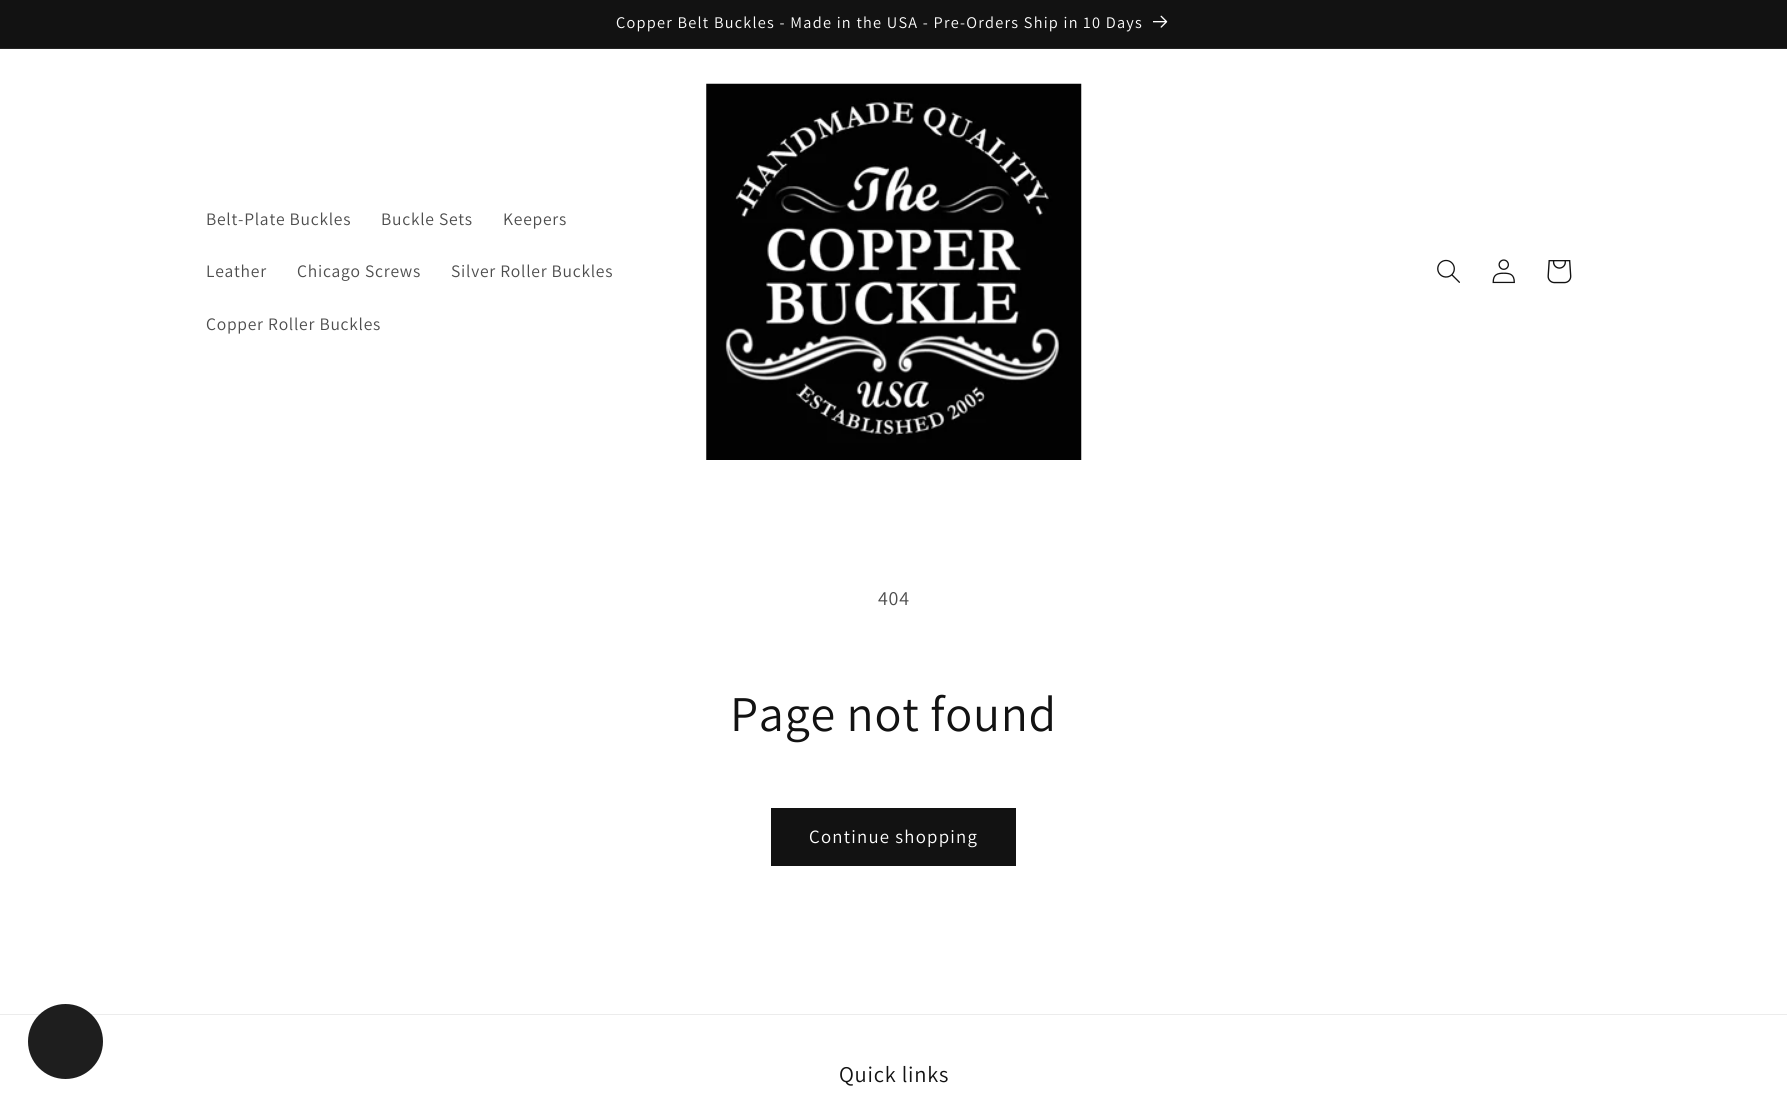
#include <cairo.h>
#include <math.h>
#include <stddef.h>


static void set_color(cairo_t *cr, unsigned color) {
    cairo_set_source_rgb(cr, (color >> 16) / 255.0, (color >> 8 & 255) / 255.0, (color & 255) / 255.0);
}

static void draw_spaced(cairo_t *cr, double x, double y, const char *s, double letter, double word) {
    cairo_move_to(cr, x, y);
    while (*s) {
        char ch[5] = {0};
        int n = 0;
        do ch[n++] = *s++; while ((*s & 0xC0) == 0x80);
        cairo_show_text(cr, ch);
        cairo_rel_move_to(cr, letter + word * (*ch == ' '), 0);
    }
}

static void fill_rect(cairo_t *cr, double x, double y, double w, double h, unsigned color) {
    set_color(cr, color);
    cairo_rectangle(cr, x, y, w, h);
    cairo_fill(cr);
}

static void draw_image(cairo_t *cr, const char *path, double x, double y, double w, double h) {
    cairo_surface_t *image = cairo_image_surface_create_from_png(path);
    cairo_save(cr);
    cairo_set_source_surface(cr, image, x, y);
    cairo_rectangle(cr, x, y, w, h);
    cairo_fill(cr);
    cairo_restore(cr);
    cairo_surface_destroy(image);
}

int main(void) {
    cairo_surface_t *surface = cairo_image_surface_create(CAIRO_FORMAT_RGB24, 1787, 1104);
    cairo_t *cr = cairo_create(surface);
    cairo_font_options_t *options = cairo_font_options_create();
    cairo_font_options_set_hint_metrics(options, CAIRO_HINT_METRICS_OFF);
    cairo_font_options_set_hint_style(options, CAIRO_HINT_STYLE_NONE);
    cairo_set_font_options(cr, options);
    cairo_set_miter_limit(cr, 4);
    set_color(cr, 0xFFFFFF);
    cairo_paint(cr);
    fill_rect(cr, 0, 0, 1787, 48, 0x121212);
    fill_rect(cr, 0, 48, 1787, 1, 0x252525);
    cairo_select_font_face(cr, "Assistant", CAIRO_FONT_SLANT_NORMAL, CAIRO_FONT_WEIGHT_NORMAL);
    cairo_set_font_size(cr, 16.25);
    set_color(cr, 0xFFFFFF);
    draw_spaced(cr, 616, 28, "Copper Belt Buckles - Made in the USA - Pre-Orders Ship in 10 Days", 1.25, 0);
    draw_image(cr, "assets/img1.png", 1153, 15, 15, 13);
    cairo_set_font_size(cr, 17.5);
    set_color(cr, 0x4D4D4D);
    draw_spaced(cr, 206, 225, "Belt-Plate Buckles", 0.75, 0);
    draw_spaced(cr, 381, 225, "Buckle Sets", 0.75, 0);
    draw_spaced(cr, 503, 225, "Keepers", 0.75, 0);
    draw_spaced(cr, 206, 277, "Leather", 0.75, 0);
    draw_spaced(cr, 297, 277, "Chicago Screws", 0.75, 0);
    draw_spaced(cr, 451, 277, "Silver Roller Buckles", 0.75, 0);
    draw_spaced(cr, 206, 330, "Copper Roller Buckles", 0.75, 0);
    draw_image(cr, "assets/img2.png", 706, 83, 376, 377);
    draw_image(cr, "assets/img3.png", 1437, 259, 23, 24);
    draw_image(cr, "assets/img4.png", 1492, 259, 23, 25);
    draw_image(cr, "assets/img5.png", 1547, 260, 25, 24);
    cairo_set_font_size(cr, 20);
    draw_spaced(cr, 878, 605, "404", 0.75, 0);
    cairo_set_font_size(cr, 50);
    set_color(cr, 0x121212);
    draw_spaced(cr, 730, 731, "Page not found", 0.75, 0);
    fill_rect(cr, 771, 808, 245, 58, 0x121212);
    cairo_set_font_size(cr, 18.75);
    set_color(cr, 0xFFFFFF);
    draw_spaced(cr, 809, 843, "Continue shopping", 1.25, 0);
    fill_rect(cr, 0, 1014, 1787, 1, 0xECECEC);
    set_color(cr, 0x1E1E1E);
    cairo_new_path(cr);
    cairo_arc(cr, 65.5, 1041.5, 37.5, 0, 2 * M_PI);
    cairo_fill(cr);
    cairo_set_font_size(cr, 22.5);
    set_color(cr, 0x121212);
    draw_spaced(cr, 839, 1082, "Quick links", 0.75, 0);
    cairo_surface_write_to_png(surface, "output.png");
    cairo_font_options_destroy(options);
    cairo_destroy(cr);
    cairo_surface_destroy(surface);
    return 0;
}
